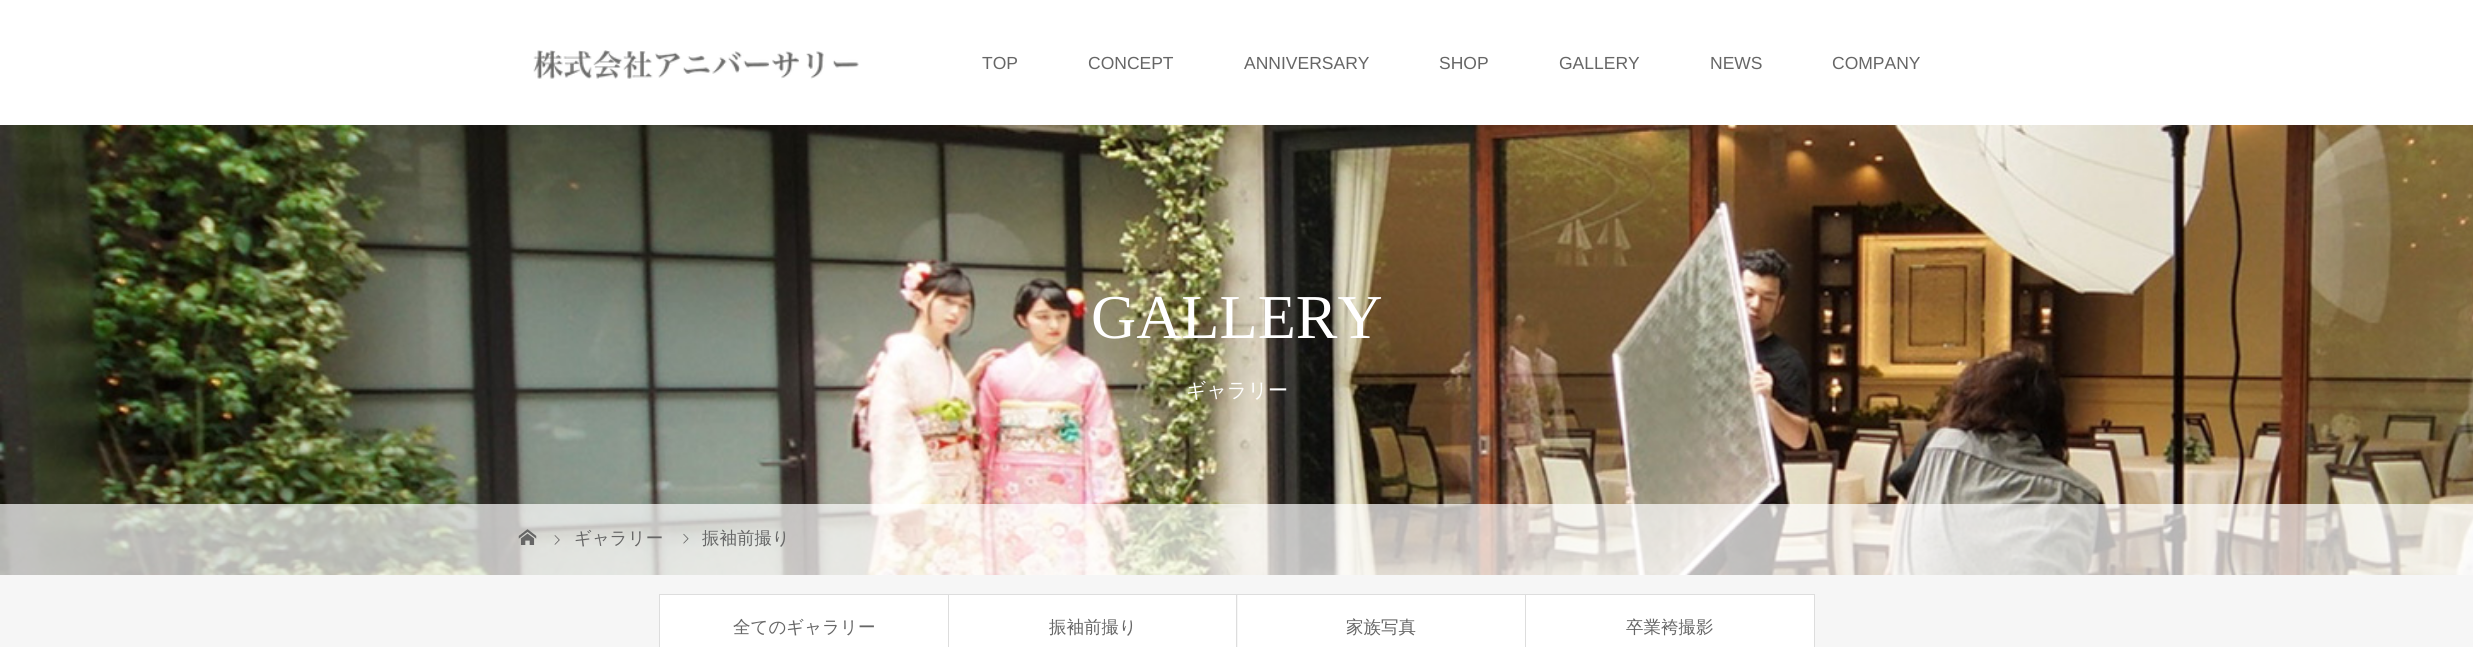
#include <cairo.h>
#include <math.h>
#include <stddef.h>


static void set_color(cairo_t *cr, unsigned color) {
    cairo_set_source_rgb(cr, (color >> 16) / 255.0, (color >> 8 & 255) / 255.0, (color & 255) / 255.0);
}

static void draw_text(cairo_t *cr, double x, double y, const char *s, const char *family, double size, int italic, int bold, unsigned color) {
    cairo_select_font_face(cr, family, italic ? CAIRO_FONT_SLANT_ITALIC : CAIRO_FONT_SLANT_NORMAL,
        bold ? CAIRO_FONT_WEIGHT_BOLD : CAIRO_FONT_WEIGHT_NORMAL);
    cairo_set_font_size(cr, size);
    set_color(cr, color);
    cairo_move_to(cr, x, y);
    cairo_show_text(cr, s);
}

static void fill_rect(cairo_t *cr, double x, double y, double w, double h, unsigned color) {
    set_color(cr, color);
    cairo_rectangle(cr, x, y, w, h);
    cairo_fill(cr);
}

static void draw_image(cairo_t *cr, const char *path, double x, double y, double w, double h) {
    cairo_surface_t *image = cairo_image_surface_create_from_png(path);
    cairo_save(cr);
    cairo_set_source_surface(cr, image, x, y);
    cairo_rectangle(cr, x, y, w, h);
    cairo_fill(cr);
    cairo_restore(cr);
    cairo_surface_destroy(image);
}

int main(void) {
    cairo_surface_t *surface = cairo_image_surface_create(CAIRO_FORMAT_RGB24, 2473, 647);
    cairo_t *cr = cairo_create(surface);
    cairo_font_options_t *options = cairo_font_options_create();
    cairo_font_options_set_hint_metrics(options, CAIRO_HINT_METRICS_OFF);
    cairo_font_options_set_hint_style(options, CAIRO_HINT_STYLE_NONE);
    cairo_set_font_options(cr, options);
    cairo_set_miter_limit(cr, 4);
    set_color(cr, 0xFFFFFF);
    cairo_paint(cr);
    draw_image(cr, "assets/img1.png", 533, 50, 326, 29);
    draw_text(cr, 982, 69, "TOP", "Liberation Sans", 17.5, 0, 0, 0x666666);
    draw_text(cr, 1088, 69, "CONCEPT", "Liberation Sans", 17.5, 0, 0, 0x666666);
    draw_text(cr, 1244, 69, "ANNIVERSARY", "Liberation Sans", 17.5, 0, 0, 0x666666);
    draw_text(cr, 1439, 69, "SHOP", "Liberation Sans", 17.5, 0, 0, 0x666666);
    draw_text(cr, 1559, 69, "GALLERY", "Liberation Sans", 17.5, 0, 0, 0x666666);
    draw_text(cr, 1710, 69, "NEWS", "Liberation Sans", 17.5, 0, 0, 0x666666);
    draw_text(cr, 1832, 69, "COMPANY", "Liberation Sans", 17.5, 0, 0, 0x666666);
    draw_image(cr, "assets/img2.png", 0, 125, 2473, 450);
    draw_text(cr, 1091, 338, "GALLERY", "Liberation Serif", 62.5, 0, 0, 0xFFFFFF);
    draw_text(cr, 1186, 397, "ギャラリー", "WenQuanYi Zen Hei Medium", 20, 0, 0, 0xFFFFFF);
    cairo_set_source_rgba(cr, 1, 1, 1, 0.7);
    cairo_rectangle(cr, 0, 504, 2473, 71);
    cairo_fill(cr);
    draw_image(cr, "assets/img3.png", 518, 529, 19, 16);
    draw_image(cr, "assets/img4.png", 554, 535, 6, 10);
    draw_text(cr, 574, 544, "ギャラリー", "WenQuanYi Zen Hei Medium", 17.5, 0, 0, 0x666666);
    draw_image(cr, "assets/img5.png", 683, 533, 6, 11);
    draw_text(cr, 702, 544, "振袖前撮り", "WenQuanYi Zen Hei Medium", 17.5, 0, 0, 0x666666);
    fill_rect(cr, 0, 575, 2473, 72, 0xF6F6F6);
    cairo_rectangle(cr, 659.5, 594.5, 289, 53);
    set_color(cr, 0xDDDDDD);
    cairo_set_line_width(cr, 1);
    cairo_stroke(cr);
    fill_rect(cr, 660, 595, 288, 52, 0xFFFFFF);
    draw_text(cr, 733, 633, "全てのギャラリー", "WenQuanYi Zen Hei Medium", 17.5, 0, 0, 0x666666);
    fill_rect(cr, 949, 594, 866, 1, 0xDDDDDD);
    fill_rect(cr, 1236, 594, 1, 53, 0xDDDDDD);
    fill_rect(cr, 949, 595, 287, 52, 0xFFFFFF);
    draw_text(cr, 1049, 633, "振袖前撮り", "WenQuanYi Zen Hei Medium", 17.5, 0, 0, 0x666666);
    fill_rect(cr, 1525, 594, 1, 53, 0xDDDDDD);
    fill_rect(cr, 1238, 595, 287, 52, 0xFFFFFF);
    draw_text(cr, 1346, 633, "家族写真", "WenQuanYi Zen Hei Medium", 17.5, 0, 0, 0x666666);
    fill_rect(cr, 1814, 594, 1, 53, 0xDDDDDD);
    fill_rect(cr, 1526, 595, 288, 52, 0xFFFFFF);
    draw_text(cr, 1626, 633, "卒業袴撮影", "WenQuanYi Zen Hei Medium", 17.5, 0, 0, 0x666666);
    cairo_surface_write_to_png(surface, "output.png");
    cairo_font_options_destroy(options);
    cairo_destroy(cr);
    cairo_surface_destroy(surface);
    return 0;
}
